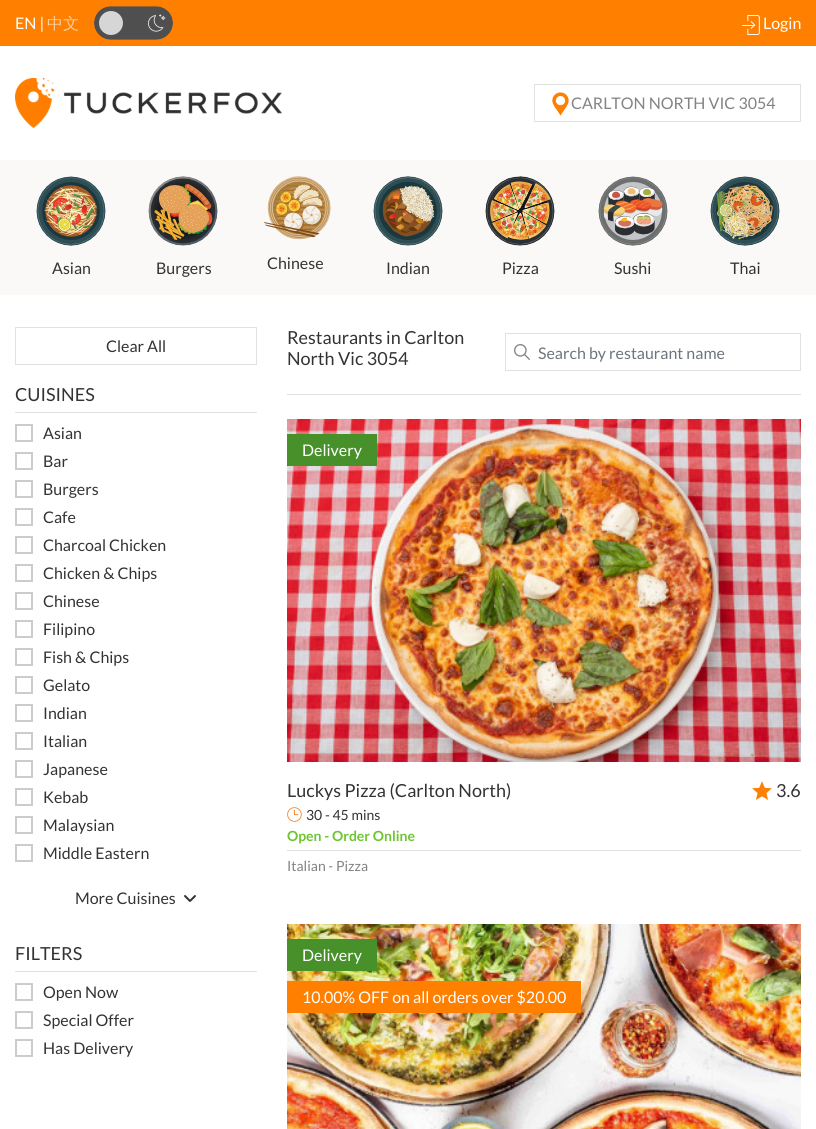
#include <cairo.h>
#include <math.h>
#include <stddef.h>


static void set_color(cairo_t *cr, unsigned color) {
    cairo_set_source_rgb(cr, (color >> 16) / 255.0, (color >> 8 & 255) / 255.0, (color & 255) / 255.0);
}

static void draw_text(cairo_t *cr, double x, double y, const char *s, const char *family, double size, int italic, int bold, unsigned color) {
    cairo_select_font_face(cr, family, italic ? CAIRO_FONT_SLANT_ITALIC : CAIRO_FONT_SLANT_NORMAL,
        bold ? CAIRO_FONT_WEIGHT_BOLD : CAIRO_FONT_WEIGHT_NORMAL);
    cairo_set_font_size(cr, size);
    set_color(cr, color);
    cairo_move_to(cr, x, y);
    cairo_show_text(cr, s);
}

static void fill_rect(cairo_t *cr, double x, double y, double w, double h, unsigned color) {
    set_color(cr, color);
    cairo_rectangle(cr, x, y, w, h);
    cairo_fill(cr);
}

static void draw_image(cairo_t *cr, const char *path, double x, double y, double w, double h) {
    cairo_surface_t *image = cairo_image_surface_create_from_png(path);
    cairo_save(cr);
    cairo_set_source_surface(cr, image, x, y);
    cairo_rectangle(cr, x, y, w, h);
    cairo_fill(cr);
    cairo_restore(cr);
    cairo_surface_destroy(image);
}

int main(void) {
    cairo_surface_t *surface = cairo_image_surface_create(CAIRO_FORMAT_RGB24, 816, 1129);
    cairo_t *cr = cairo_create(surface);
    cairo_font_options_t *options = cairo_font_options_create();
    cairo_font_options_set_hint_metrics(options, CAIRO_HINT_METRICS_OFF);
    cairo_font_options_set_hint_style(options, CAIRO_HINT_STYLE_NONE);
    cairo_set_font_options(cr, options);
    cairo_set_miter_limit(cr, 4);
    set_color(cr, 0xFFFFFF);
    cairo_paint(cr);
    fill_rect(cr, 0, 0, 816, 46, 0xFF7F00);
    draw_text(cr, 15, 29, "EN |", "Lato", 16, 0, 0, 0xFFFFFF);
    draw_text(cr, 47, 29, "中文", "WenQuanYi Zen Hei Medium", 16, 0, 0, 0xFFCC99);
    draw_image(cr, "assets/img1.png", 94, 6, 79, 34);
    set_color(cr, 0xD6D6D6);
    cairo_arc(cr, 111, 23, 12, 0, 2 * M_PI);
    cairo_fill(cr);
    draw_image(cr, "assets/img2.png", 742, 15, 18, 20);
    draw_text(cr, 763, 29, "Login", "Lato", 16, 0, 0, 0xFFFFFF);
    draw_image(cr, "assets/img3.png", 15, 78, 267, 50);
    cairo_rectangle(cr, 534.5, 84.5, 266, 37);
    set_color(cr, 0xE1E1E1);
    cairo_set_line_width(cr, 1);
    cairo_stroke(cr);
    draw_image(cr, "assets/img4.png", 552, 92, 17, 24);
    draw_text(cr, 571, 109, "CARLTON NORTH VIC 3054", "Lato", 16, 0, 0, 0x838383);
    fill_rect(cr, 0, 160, 816, 135, 0xFAF9F7);
    draw_image(cr, "assets/img5.png", 36, 176, 70, 70);
    draw_text(cr, 52, 274, "Asian", "Lato", 16, 0, 0, 0x333333);
    draw_image(cr, "assets/img6.png", 148, 176, 70, 70);
    draw_text(cr, 156, 274, "Burgers", "Lato", 16, 0, 0, 0x333333);
    draw_image(cr, "assets/img7.png", 264, 176, 67, 64);
    draw_text(cr, 267, 269, "Chinese", "Lato", 16, 0, 0, 0x333333);
    draw_image(cr, "assets/img8.png", 373, 176, 70, 70);
    draw_text(cr, 386, 274, "Indian", "Lato", 16, 0, 0, 0x333333);
    draw_image(cr, "assets/img9.png", 485, 176, 70, 70);
    draw_text(cr, 502, 274, "Pizza", "Lato", 16, 0, 0, 0x333333);
    draw_image(cr, "assets/img10.png", 598, 176, 70, 70);
    draw_text(cr, 614, 274, "Sushi", "Lato", 16, 0, 0, 0x333333);
    draw_image(cr, "assets/img11.png", 710, 176, 70, 70);
    draw_text(cr, 730, 274, "Thai", "Lato", 16, 0, 0, 0x333333);
    cairo_rectangle(cr, 15.5, 327.5, 241, 37);
    set_color(cr, 0xE1E1E1);
    cairo_stroke(cr);
    draw_text(cr, 106, 352, "Clear All", "Lato", 16, 0, 0, 0x333333);
    fill_rect(cr, 15, 412, 242, 1, 0xE1E1E1);
    draw_text(cr, 15, 401, "CUISINES", "Lato", 18, 0, 0, 0x333333);
    cairo_rectangle(cr, 16, 425, 16, 16);
    set_color(cr, 0xCCCCCC);
    cairo_set_line_width(cr, 2);
    cairo_stroke(cr);
    draw_text(cr, 43, 439, "Asian", "Lato", 16, 0, 0, 0x333333);
    cairo_rectangle(cr, 16, 453, 16, 16);
    set_color(cr, 0xCCCCCC);
    cairo_stroke(cr);
    draw_text(cr, 43, 467, "Bar", "Lato", 16, 0, 0, 0x333333);
    cairo_rectangle(cr, 16, 481, 16, 16);
    set_color(cr, 0xCCCCCC);
    cairo_stroke(cr);
    draw_text(cr, 43, 495, "Burgers", "Lato", 16, 0, 0, 0x333333);
    cairo_rectangle(cr, 16, 509, 16, 16);
    set_color(cr, 0xCCCCCC);
    cairo_stroke(cr);
    draw_text(cr, 43, 523, "Cafe", "Lato", 16, 0, 0, 0x333333);
    cairo_rectangle(cr, 16, 537, 16, 16);
    set_color(cr, 0xCCCCCC);
    cairo_stroke(cr);
    draw_text(cr, 43, 551, "Charcoal Chicken", "Lato", 16, 0, 0, 0x333333);
    cairo_rectangle(cr, 16, 565, 16, 16);
    set_color(cr, 0xCCCCCC);
    cairo_stroke(cr);
    draw_text(cr, 43, 579, "Chicken & Chips", "Lato", 16, 0, 0, 0x333333);
    cairo_rectangle(cr, 16, 593, 16, 16);
    set_color(cr, 0xCCCCCC);
    cairo_stroke(cr);
    draw_text(cr, 43, 607, "Chinese", "Lato", 16, 0, 0, 0x333333);
    cairo_rectangle(cr, 16, 621, 16, 16);
    set_color(cr, 0xCCCCCC);
    cairo_stroke(cr);
    draw_text(cr, 43, 635, "Filipino", "Lato", 16, 0, 0, 0x333333);
    cairo_rectangle(cr, 16, 649, 16, 16);
    set_color(cr, 0xCCCCCC);
    cairo_stroke(cr);
    draw_text(cr, 43, 663, "Fish & Chips", "Lato", 16, 0, 0, 0x333333);
    cairo_rectangle(cr, 16, 677, 16, 16);
    set_color(cr, 0xCCCCCC);
    cairo_stroke(cr);
    draw_text(cr, 43, 691, "Gelato", "Lato", 16, 0, 0, 0x333333);
    cairo_rectangle(cr, 16, 705, 16, 16);
    set_color(cr, 0xCCCCCC);
    cairo_stroke(cr);
    draw_text(cr, 43, 719, "Indian", "Lato", 16, 0, 0, 0x333333);
    cairo_rectangle(cr, 16, 733, 16, 16);
    set_color(cr, 0xCCCCCC);
    cairo_stroke(cr);
    draw_text(cr, 43, 747, "Italian", "Lato", 16, 0, 0, 0x333333);
    cairo_rectangle(cr, 16, 761, 16, 16);
    set_color(cr, 0xCCCCCC);
    cairo_stroke(cr);
    draw_text(cr, 43, 775, "Japanese", "Lato", 16, 0, 0, 0x333333);
    cairo_rectangle(cr, 16, 789, 16, 16);
    set_color(cr, 0xCCCCCC);
    cairo_stroke(cr);
    draw_text(cr, 43, 803, "Kebab", "Lato", 16, 0, 0, 0x333333);
    cairo_rectangle(cr, 16, 817, 16, 16);
    set_color(cr, 0xCCCCCC);
    cairo_stroke(cr);
    draw_text(cr, 43, 831, "Malaysian", "Lato", 16, 0, 0, 0x333333);
    cairo_rectangle(cr, 16, 845, 16, 16);
    set_color(cr, 0xCCCCCC);
    cairo_stroke(cr);
    draw_text(cr, 43, 859, "Middle Eastern", "Lato", 16, 0, 0, 0x333333);
    draw_text(cr, 75, 904, "More Cuisines", "Lato", 16, 0, 0, 0x333333);
    draw_image(cr, "assets/img12.png", 184, 895, 12, 7);
    fill_rect(cr, 15, 971, 242, 1, 0xE1E1E1);
    draw_text(cr, 15, 960, "FILTERS", "Lato", 18, 0, 0, 0x333333);
    cairo_rectangle(cr, 16, 984, 16, 16);
    set_color(cr, 0xCCCCCC);
    cairo_stroke(cr);
    draw_text(cr, 43, 998, "Open Now", "Lato", 16, 0, 0, 0x333333);
    cairo_rectangle(cr, 16, 1012, 16, 16);
    set_color(cr, 0xCCCCCC);
    cairo_stroke(cr);
    draw_text(cr, 43, 1026, "Special Offer", "Lato", 16, 0, 0, 0x333333);
    cairo_rectangle(cr, 16, 1040, 16, 16);
    set_color(cr, 0xCCCCCC);
    cairo_stroke(cr);
    draw_text(cr, 43, 1054, "Has Delivery", "Lato", 16, 0, 0, 0x333333);
    draw_text(cr, 287, 344, "Restaurants in Carlton", "Lato", 18, 0, 0, 0x333333);
    draw_text(cr, 287, 365, "North Vic 3054", "Lato", 18, 0, 0, 0x333333);
    draw_image(cr, "assets/img13.png", 514, 344, 16, 16);
    cairo_rectangle(cr, 505.5, 333.5, 295, 37);
    set_color(cr, 0xE1E1E1);
    cairo_set_line_width(cr, 1);
    cairo_stroke(cr);
    draw_text(cr, 538, 359, "Search by restaurant name", "Lato", 16, 0, 0, 0x6C757D);
    fill_rect(cr, 287, 394, 514, 1, 0xE1E1E1);
    draw_image(cr, "assets/img14.png", 287, 419, 514, 343);
    fill_rect(cr, 287, 434, 90, 32, 0x48912A);
    draw_text(cr, 302, 456, "Delivery", "Lato", 16, 0, 0, 0xFFFFFF);
    draw_text(cr, 287, 797, "Luckys Pizza (Carlton North)", "Lato", 18, 0, 0, 0x333333);
    draw_image(cr, "assets/img15.png", 752, 781, 20, 19);
    draw_text(cr, 776, 797, "3.6", "Lato", 18, 0, 0, 0x333333);
    draw_image(cr, "assets/img16.png", 287, 807, 15, 15);
    draw_text(cr, 306, 820, "30 - 45 mins", "Lato", 14, 0, 0, 0x333333);
    draw_text(cr, 287, 841, "Open - Order Online", "Lato", 14, 0, 1, 0x6DC530);
    fill_rect(cr, 287, 850, 514, 1, 0xE1E1E1);
    draw_text(cr, 287, 871, "Italian - Pizza", "Lato", 14, 0, 0, 0x838383);
    draw_image(cr, "assets/img17.png", 287, 924, 514, 205);
    fill_rect(cr, 287, 939, 90, 32, 0x48912A);
    draw_text(cr, 302, 961, "Delivery", "Lato", 16, 0, 0, 0xFFFFFF);
    fill_rect(cr, 287, 981, 294, 32, 0xFF7F00);
    draw_text(cr, 302, 1003, "10.00% OFF on all orders over $20.00", "Lato", 16, 0, 0, 0xFFFFFF);
    cairo_surface_write_to_png(surface, "output.png");
    cairo_font_options_destroy(options);
    cairo_destroy(cr);
    cairo_surface_destroy(surface);
    return 0;
}
